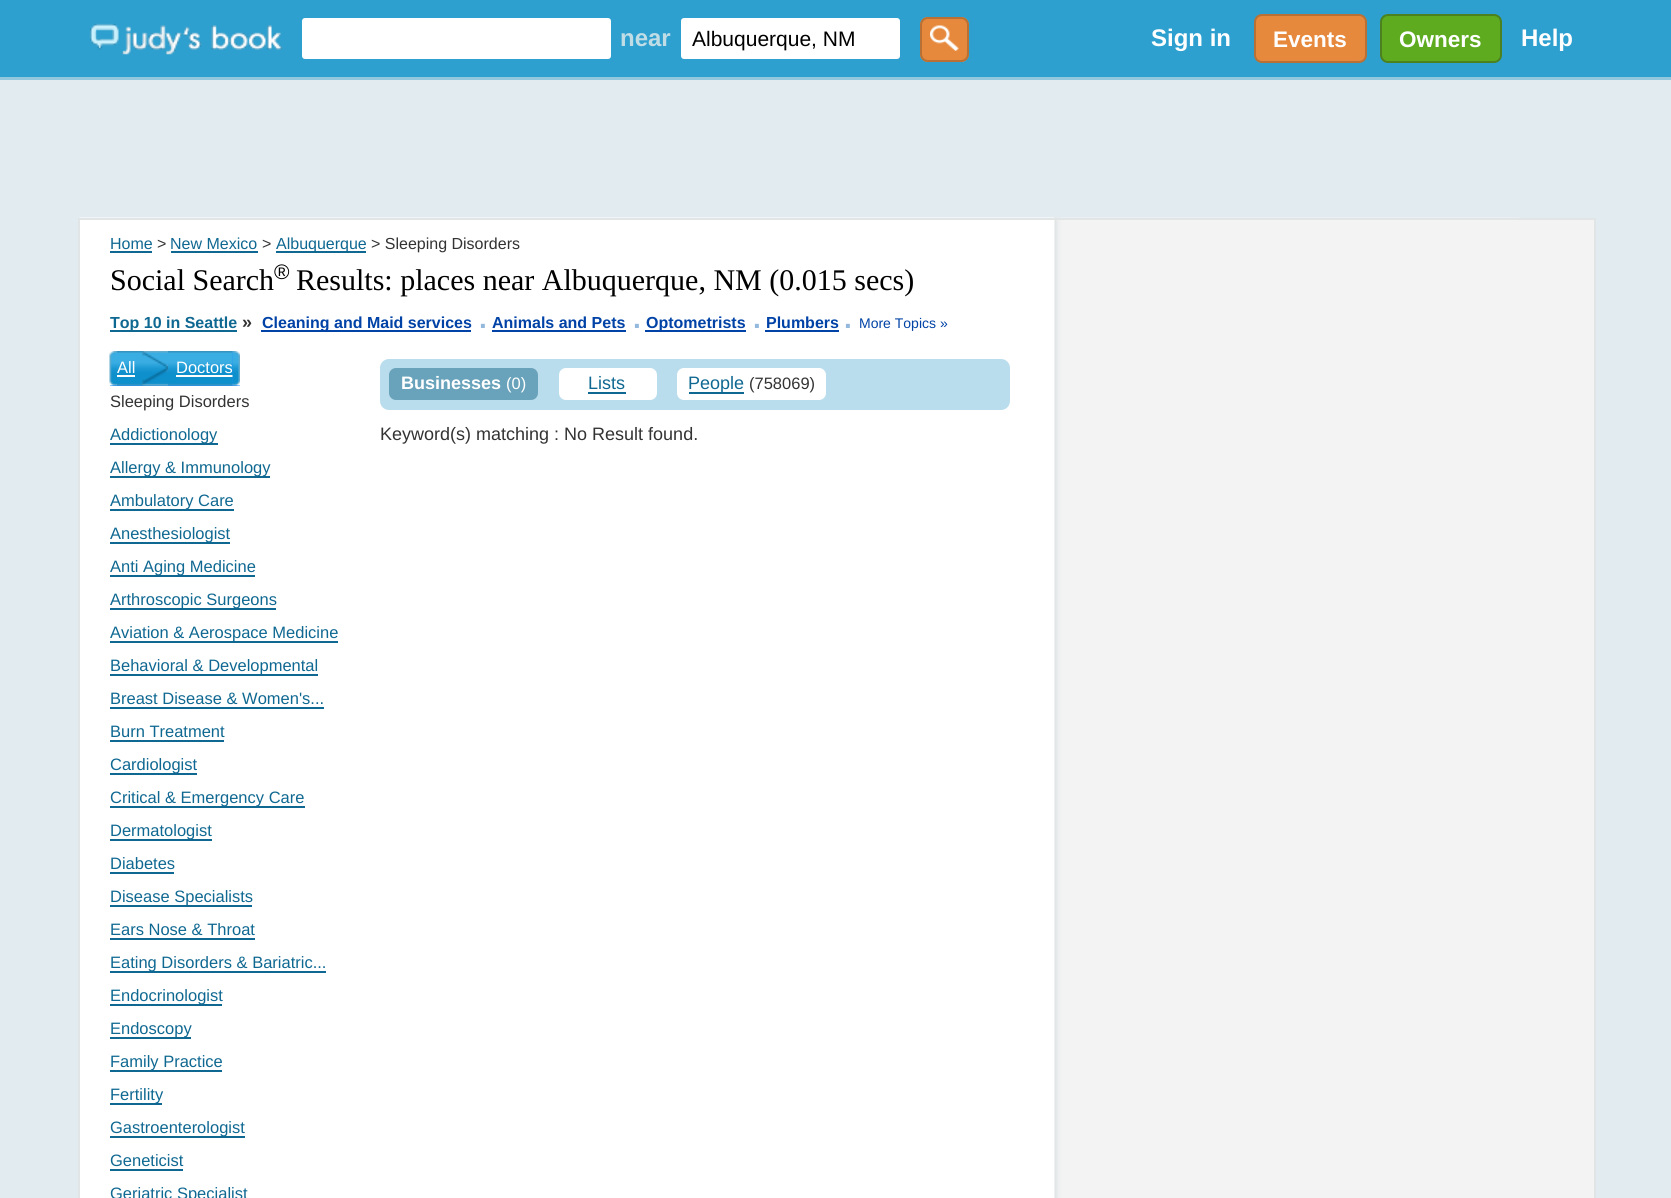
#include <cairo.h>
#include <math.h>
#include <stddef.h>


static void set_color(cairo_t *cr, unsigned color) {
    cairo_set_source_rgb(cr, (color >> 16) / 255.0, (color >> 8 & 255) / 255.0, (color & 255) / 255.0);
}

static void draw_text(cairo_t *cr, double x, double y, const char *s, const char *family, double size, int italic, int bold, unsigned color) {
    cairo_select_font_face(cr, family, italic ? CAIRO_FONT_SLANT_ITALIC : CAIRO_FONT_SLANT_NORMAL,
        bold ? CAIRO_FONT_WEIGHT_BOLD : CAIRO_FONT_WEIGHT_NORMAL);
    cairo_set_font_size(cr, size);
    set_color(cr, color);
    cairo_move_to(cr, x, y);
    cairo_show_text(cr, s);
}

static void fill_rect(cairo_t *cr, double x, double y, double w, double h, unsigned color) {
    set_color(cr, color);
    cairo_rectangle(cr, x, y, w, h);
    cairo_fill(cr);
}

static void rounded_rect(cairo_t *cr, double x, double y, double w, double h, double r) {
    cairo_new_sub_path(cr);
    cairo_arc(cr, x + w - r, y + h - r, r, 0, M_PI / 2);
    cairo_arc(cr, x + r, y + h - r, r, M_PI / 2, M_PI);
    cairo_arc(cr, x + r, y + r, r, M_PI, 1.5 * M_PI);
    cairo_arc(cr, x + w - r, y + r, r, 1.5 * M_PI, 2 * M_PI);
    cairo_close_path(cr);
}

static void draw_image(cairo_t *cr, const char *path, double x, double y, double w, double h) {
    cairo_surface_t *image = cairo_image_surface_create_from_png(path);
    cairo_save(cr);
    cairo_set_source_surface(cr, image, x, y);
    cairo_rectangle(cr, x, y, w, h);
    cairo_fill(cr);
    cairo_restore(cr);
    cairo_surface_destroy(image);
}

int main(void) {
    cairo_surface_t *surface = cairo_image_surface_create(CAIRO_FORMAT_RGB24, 1671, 1198);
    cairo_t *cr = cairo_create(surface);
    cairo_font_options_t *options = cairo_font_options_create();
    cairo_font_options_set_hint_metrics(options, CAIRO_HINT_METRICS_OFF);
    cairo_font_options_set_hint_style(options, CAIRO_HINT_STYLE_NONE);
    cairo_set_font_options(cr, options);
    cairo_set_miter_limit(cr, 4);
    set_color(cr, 0xE2EBEF);
    cairo_paint(cr);
    fill_rect(cr, 0, 0, 1671, 77, 0x2EA0CF);
    fill_rect(cr, 0, 77, 1671, 3, 0x91C8DE);
    draw_image(cr, "assets/img1.png", 89, 23, 194, 32);
    set_color(cr, 0xFFFFFF);
    rounded_rect(cr, 302, 18, 309, 41, 3);
    cairo_fill(cr);
    draw_text(cr, 620, 46, "near", "Liberation Sans", 24, 0, 1, 0xC0DDE6);
    set_color(cr, 0xFFFFFF);
    rounded_rect(cr, 681, 18, 219, 41, 3);
    cairo_fill(cr);
    draw_text(cr, 692, 46, "Albuquerque, NM", "Liberation Sans", 21, 0, 0, 0x000000);
    set_color(cr, 0xE6893C);
    rounded_rect(cr, 920, 17, 49, 45, 8);
    cairo_fill(cr);
    draw_image(cr, "assets/img2.png", 930, 25, 29, 26);
    rounded_rect(cr, 921, 18, 47, 43, 7);
    set_color(cr, 0xB97035);
    cairo_stroke(cr);
    draw_text(cr, 1151, 46, "Sign in", "Liberation Sans", 24, 0, 1, 0xFFFFFF);
    set_color(cr, 0xE6893D);
    rounded_rect(cr, 1255, 15, 111, 47, 7);
    cairo_fill_preserve(cr);
    set_color(cr, 0xB97035);
    cairo_stroke(cr);
    draw_text(cr, 1273, 47, "Events", "Liberation Sans", 22.5, 0, 1, 0xFFFFFF);
    set_color(cr, 0x5EAB1F);
    rounded_rect(cr, 1381, 15, 120, 47, 7);
    cairo_fill_preserve(cr);
    set_color(cr, 0x4B811F);
    cairo_stroke(cr);
    draw_text(cr, 1399, 47, "Owners", "Liberation Sans", 22.5, 0, 1, 0xFFFFFF);
    draw_text(cr, 1521, 46, "Help", "Liberation Sans", 24, 0, 1, 0xFFFFFF);
    fill_rect(cr, 1519, 220, 75, 978, 0xF3F3F3);
    draw_image(cr, "assets/img3.png", 79, 217, 1441, 981);
    cairo_rectangle(cr, 79, 219, 1516, 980);
    set_color(cr, 0xE2E5E6);
    cairo_stroke(cr);
    draw_text(cr, 110, 249, "Home", "Liberation Sans", 16, 0, 0, 0x0F6891);
    fill_rect(cr, 110, 251, 42, 2, 0x0F6891);
    draw_text(cr, 157, 249, ">", "Liberation Sans", 16, 0, 0, 0x333333);
    draw_text(cr, 170, 249, "New Mexico", "Liberation Sans", 16, 0, 0, 0x0F6891);
    fill_rect(cr, 171, 251, 87, 2, 0x0F6891);
    draw_text(cr, 262, 249, ">", "Liberation Sans", 16, 0, 0, 0x333333);
    fill_rect(cr, 276, 251, 90, 2, 0x0F6891);
    draw_text(cr, 276, 249, "Albuquerque", "Liberation Sans", 16, 0, 0, 0x0F6891);
    draw_text(cr, 371, 249, "> Sleeping Disorders", "Liberation Sans", 16, 0, 0, 0x333333);
    draw_text(cr, 110, 290, "Social Search", "Liberation Serif", 30, 0, 0, 0x000000);
    draw_text(cr, 274, 279, "®", "Liberation Sans", 21, 0, 0, 0x000000);
    draw_text(cr, 296, 290, "Results: places near Albuquerque, NM (0.015 secs)", "Liberation Serif", 30, 0, 0, 0x000000);
    fill_rect(cr, 110, 330, 127, 2, 0x0F6891);
    draw_text(cr, 110, 328, "Top 10 in Seattle", "Liberation Sans", 16, 0, 1, 0x0F6891);
    draw_text(cr, 242, 328, "»", "Liberation Sans", 18, 0, 1, 0x333333);
    fill_rect(cr, 261, 330, 210, 2, 0x0042A6);
    draw_text(cr, 262, 328, "Cleaning and Maid services", "Liberation Sans", 16, 0, 1, 0x0042A6);
    draw_text(cr, 479, 328, ".", "Liberation Sans", 28, 0, 1, 0x94B9DC);
    draw_text(cr, 492, 328, "Animals and Pets", "Liberation Sans", 16, 0, 1, 0x0042A6);
    fill_rect(cr, 492, 330, 134, 2, 0x0042A6);
    draw_text(cr, 633, 328, ".", "Liberation Sans", 28, 0, 1, 0x94B9DC);
    fill_rect(cr, 645, 330, 101, 2, 0x0042A6);
    draw_text(cr, 646, 328, "Optometrists", "Liberation Sans", 16, 0, 1, 0x0042A6);
    draw_text(cr, 753, 328, ".", "Liberation Sans", 28, 0, 1, 0x94B9DC);
    fill_rect(cr, 765, 330, 74, 2, 0x0042A6);
    draw_text(cr, 766, 328, "Plumbers", "Liberation Sans", 16, 0, 1, 0x0042A6);
    draw_text(cr, 844, 328, ".", "Liberation Sans", 28, 0, 1, 0x94B9DC);
    draw_text(cr, 859, 328, "More Topics »", "Liberation Sans", 14, 0, 0, 0x0042A6);
    fill_rect(cr, 110, 351, 130, 35, 0x1F8FFF);
    draw_image(cr, "assets/img4.png", 109, 351, 8, 35);
    draw_image(cr, "assets/img5.png", 117, 351, 116, 35);
    draw_text(cr, 117, 373, "All", "Liberation Sans", 16.5, 0, 0, 0xFFFFFF);
    fill_rect(cr, 117, 375, 18, 2, 0xFFFFFF);
    draw_image(cr, "assets/img6.png", 142, 351, 26, 35);
    draw_text(cr, 176, 373, "Doctors", "Liberation Sans", 16.5, 0, 0, 0xFFFFFF);
    fill_rect(cr, 176, 375, 57, 2, 0xFFFFFF);
    draw_image(cr, "assets/img7.png", 232, 351, 8, 35);
    draw_text(cr, 110, 407, "Sleeping Disorders", "Liberation Sans", 16.5, 0, 0, 0x333333);
    fill_rect(cr, 110, 443, 108, 2, 0x0F6891);
    draw_text(cr, 110, 440, "Addictionology", "Liberation Sans", 16.5, 0, 0, 0x0F6891);
    fill_rect(cr, 110, 476, 160, 2, 0x0F6891);
    draw_text(cr, 110, 473, "Allergy & Immunology", "Liberation Sans", 16.5, 0, 0, 0x0F6891);
    fill_rect(cr, 110, 509, 124, 2, 0x0F6891);
    draw_text(cr, 110, 506, "Ambulatory Care", "Liberation Sans", 16.5, 0, 0, 0x0F6891);
    fill_rect(cr, 110, 542, 120, 2, 0x0F6891);
    draw_text(cr, 110, 539, "Anesthesiologist", "Liberation Sans", 16.5, 0, 0, 0x0F6891);
    fill_rect(cr, 110, 575, 145, 2, 0x0F6891);
    draw_text(cr, 110, 572, "Anti Aging Medicine", "Liberation Sans", 16.5, 0, 0, 0x0F6891);
    fill_rect(cr, 110, 608, 166, 2, 0x0F6891);
    draw_text(cr, 110, 605, "Arthroscopic Surgeons", "Liberation Sans", 16.5, 0, 0, 0x0F6891);
    fill_rect(cr, 110, 641, 228, 2, 0x0F6891);
    draw_text(cr, 110, 638, "Aviation & Aerospace Medicine", "Liberation Sans", 16.5, 0, 0, 0x0F6891);
    fill_rect(cr, 110, 674, 208, 2, 0x0F6891);
    draw_text(cr, 110, 671, "Behavioral & Developmental", "Liberation Sans", 16.5, 0, 0, 0x0F6891);
    draw_text(cr, 110, 704, "Breast Disease & Women's...", "Liberation Sans", 16.5, 0, 0, 0x0F6891);
    fill_rect(cr, 110, 707, 214, 2, 0x0F6891);
    draw_text(cr, 110, 737, "Burn Treatment", "Liberation Sans", 16.5, 0, 0, 0x0F6891);
    fill_rect(cr, 110, 740, 114, 2, 0x0F6891);
    fill_rect(cr, 110, 773, 87, 2, 0x0F6891);
    draw_text(cr, 110, 770, "Cardiologist", "Liberation Sans", 16.5, 0, 0, 0x0F6891);
    fill_rect(cr, 110, 806, 195, 2, 0x0F6891);
    draw_text(cr, 110, 803, "Critical & Emergency Care", "Liberation Sans", 16.5, 0, 0, 0x0F6891);
    fill_rect(cr, 110, 839, 102, 2, 0x0F6891);
    draw_text(cr, 110, 836, "Dermatologist", "Liberation Sans", 16.5, 0, 0, 0x0F6891);
    draw_text(cr, 110, 869, "Diabetes", "Liberation Sans", 16.5, 0, 0, 0x0F6891);
    fill_rect(cr, 110, 872, 64, 2, 0x0F6891);
    fill_rect(cr, 110, 905, 142, 2, 0x0F6891);
    draw_text(cr, 110, 902, "Disease Specialists", "Liberation Sans", 16.5, 0, 0, 0x0F6891);
    draw_text(cr, 110, 935, "Ears Nose & Throat", "Liberation Sans", 16.5, 0, 0, 0x0F6891);
    fill_rect(cr, 110, 938, 145, 2, 0x0F6891);
    fill_rect(cr, 110, 971, 216, 2, 0x0F6891);
    draw_text(cr, 110, 968, "Eating Disorders & Bariatric...", "Liberation Sans", 16.5, 0, 0, 0x0F6891);
    fill_rect(cr, 110, 1004, 112, 2, 0x0F6891);
    draw_text(cr, 110, 1001, "Endocrinologist", "Liberation Sans", 16.5, 0, 0, 0x0F6891);
    fill_rect(cr, 110, 1037, 81, 2, 0x0F6891);
    draw_text(cr, 110, 1034, "Endoscopy", "Liberation Sans", 16.5, 0, 0, 0x0F6891);
    fill_rect(cr, 110, 1070, 112, 2, 0x0F6891);
    draw_text(cr, 110, 1067, "Family Practice", "Liberation Sans", 16.5, 0, 0, 0x0F6891);
    fill_rect(cr, 110, 1103, 52, 2, 0x0F6891);
    draw_text(cr, 110, 1100, "Fertility", "Liberation Sans", 16.5, 0, 0, 0x0F6891);
    fill_rect(cr, 110, 1136, 135, 2, 0x0F6891);
    draw_text(cr, 110, 1133, "Gastroenterologist", "Liberation Sans", 16.5, 0, 0, 0x0F6891);
    draw_text(cr, 110, 1166, "Geneticist", "Liberation Sans", 16.5, 0, 0, 0x0F6891);
    fill_rect(cr, 110, 1169, 73, 2, 0x0F6891);
    draw_text(cr, 110, 1199, "Geriatric Specialist", "Liberation Sans", 16.5, 0, 0, 0x0F6891);
    set_color(cr, 0xB9DDEC);
    rounded_rect(cr, 380, 359, 630, 51, 9);
    cairo_fill(cr);
    set_color(cr, 0x69A3BB);
    rounded_rect(cr, 388, 367, 151, 34, 8);
    cairo_fill_preserve(cr);
    set_color(cr, 0xB9DDEC);
    cairo_stroke(cr);
    draw_text(cr, 401, 389, "Businesses", "Liberation Sans", 18, 0, 1, 0xFFFFFF);
    draw_text(cr, 506, 389, "(0)", "Liberation Sans", 16.5, 0, 0, 0xFFFFFF);
    rounded_rect(cr, 558, 367, 100, 34, 8);
    cairo_fill_preserve(cr);
    set_color(cr, 0xB9DDEC);
    cairo_stroke(cr);
    draw_text(cr, 588, 389, "Lists", "Liberation Sans", 18, 0, 0, 0x0F6891);
    fill_rect(cr, 588, 392, 38, 2, 0x0F6891);
    set_color(cr, 0xFFFFFF);
    rounded_rect(cr, 676, 367, 151, 34, 8);
    cairo_fill_preserve(cr);
    set_color(cr, 0xB9DDEC);
    cairo_stroke(cr);
    fill_rect(cr, 689, 392, 55, 2, 0x0F6891);
    draw_text(cr, 688, 389, "People", "Liberation Sans", 18, 0, 0, 0x0F6891);
    draw_text(cr, 749, 389, "(758069)", "Liberation Sans", 16.5, 0, 0, 0x333333);
    draw_text(cr, 380, 440, "Keyword(s) matching : No Result found.", "Liberation Sans", 18, 0, 0, 0x333333);
    cairo_surface_write_to_png(surface, "output.png");
    cairo_font_options_destroy(options);
    cairo_destroy(cr);
    cairo_surface_destroy(surface);
    return 0;
}
